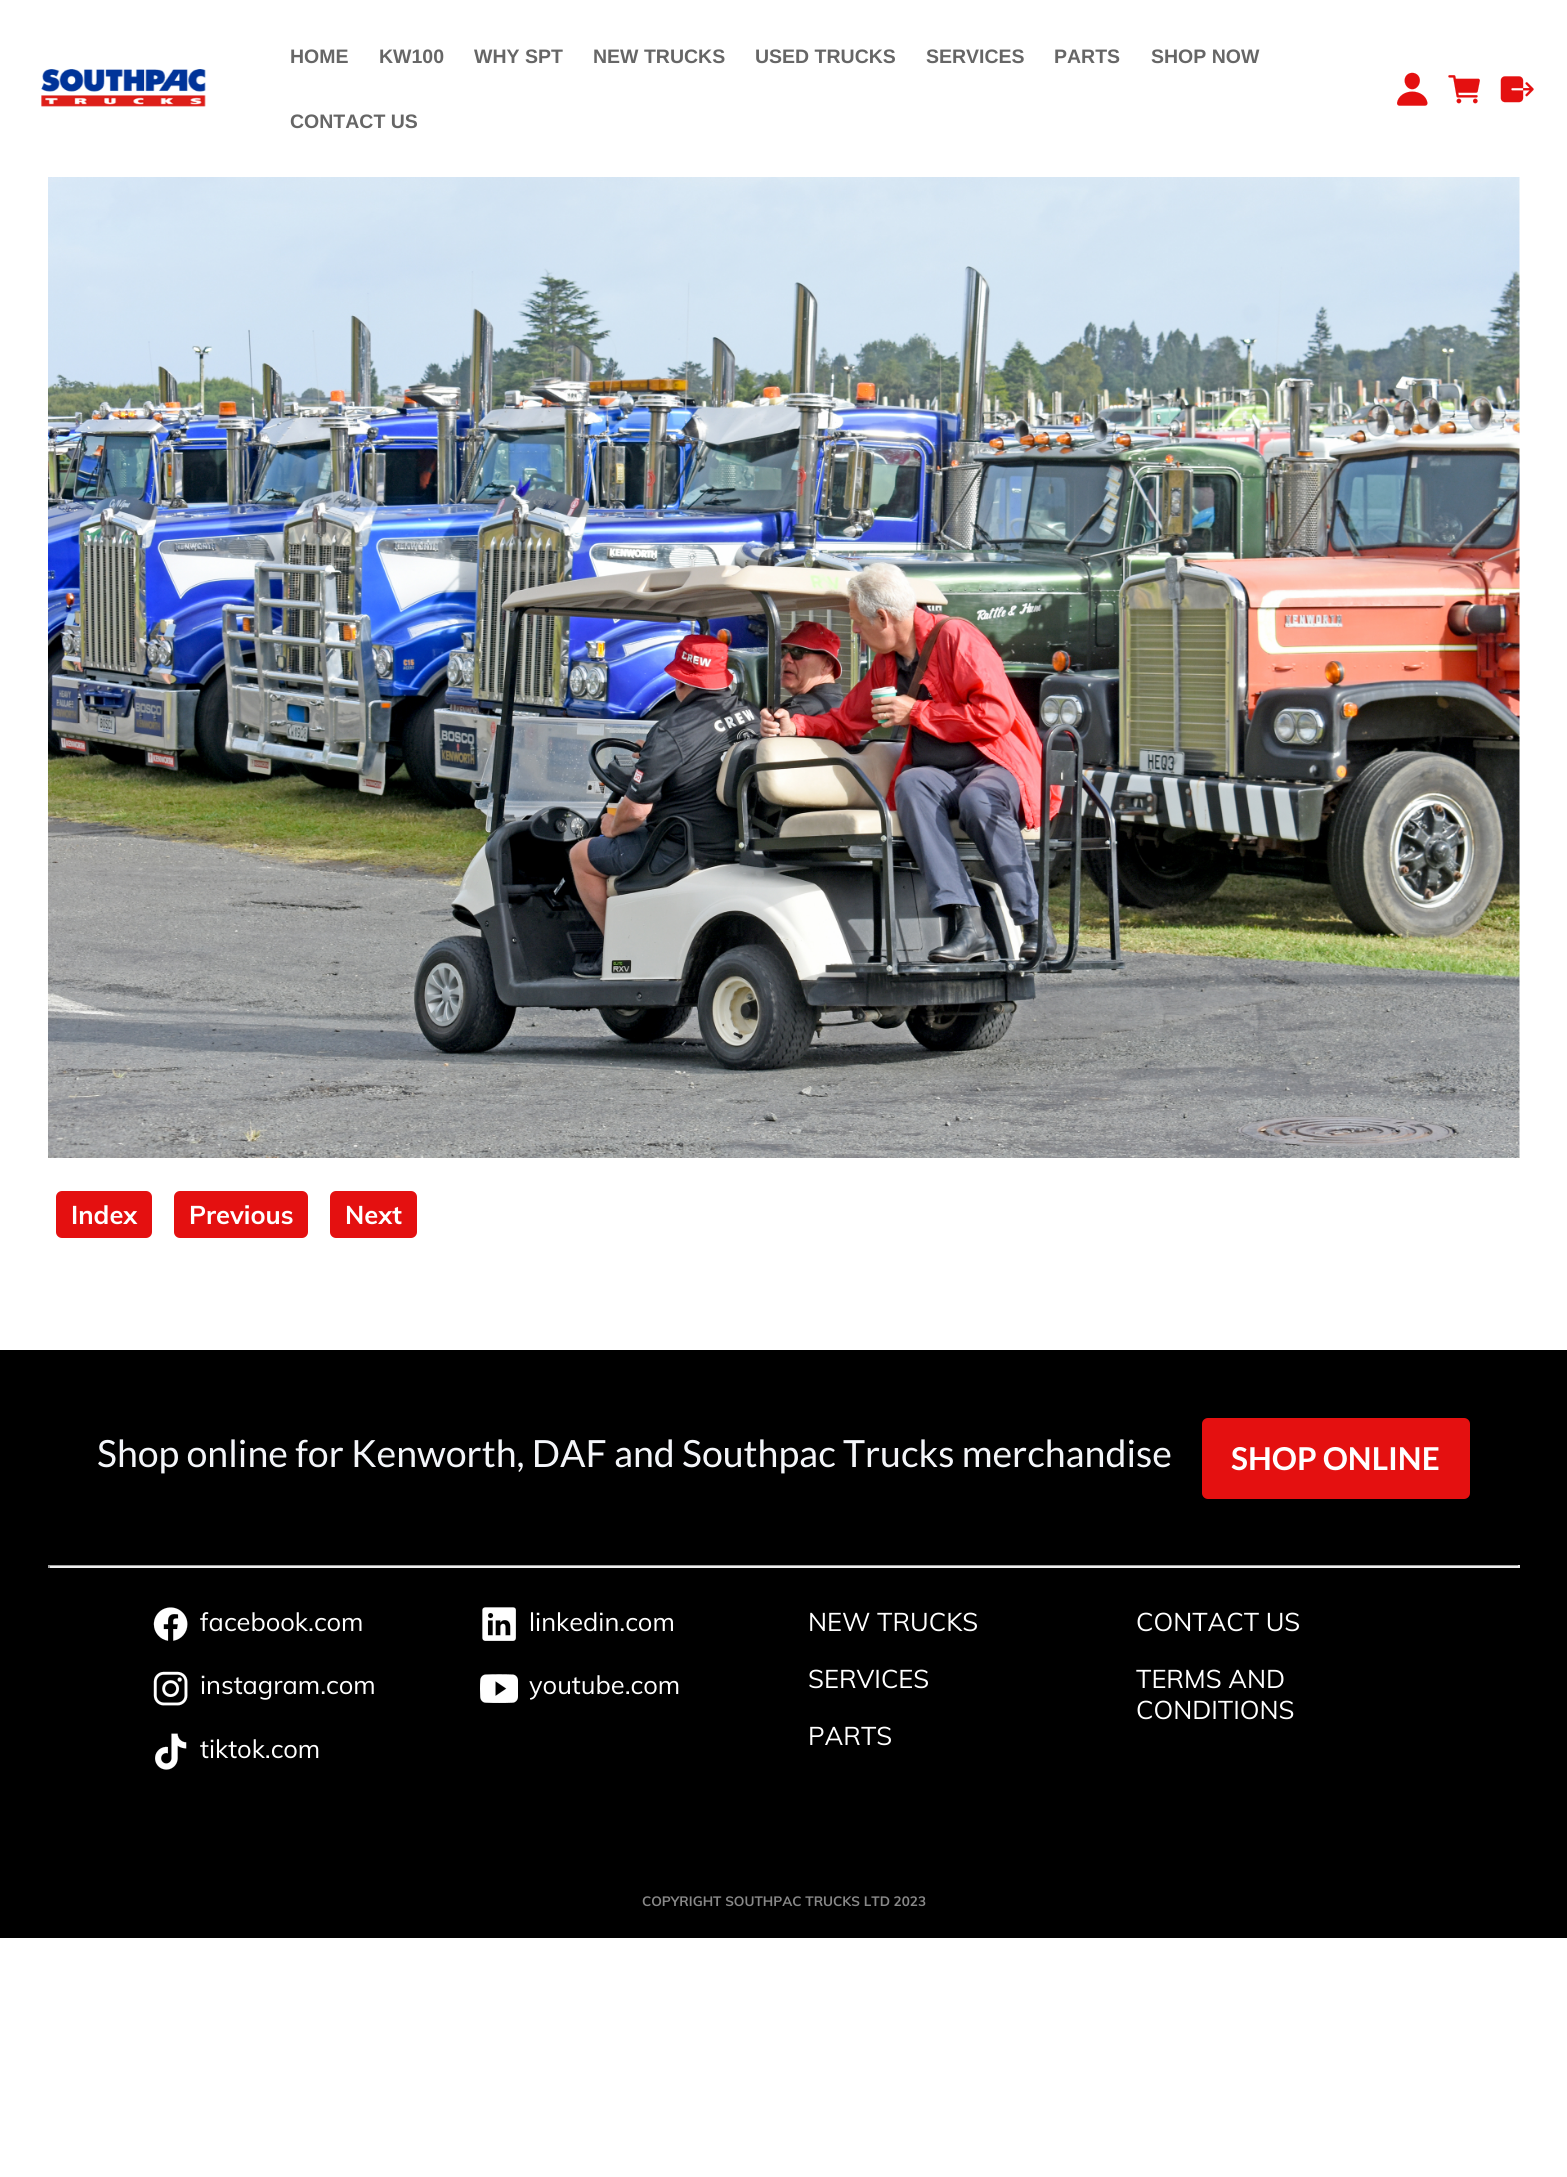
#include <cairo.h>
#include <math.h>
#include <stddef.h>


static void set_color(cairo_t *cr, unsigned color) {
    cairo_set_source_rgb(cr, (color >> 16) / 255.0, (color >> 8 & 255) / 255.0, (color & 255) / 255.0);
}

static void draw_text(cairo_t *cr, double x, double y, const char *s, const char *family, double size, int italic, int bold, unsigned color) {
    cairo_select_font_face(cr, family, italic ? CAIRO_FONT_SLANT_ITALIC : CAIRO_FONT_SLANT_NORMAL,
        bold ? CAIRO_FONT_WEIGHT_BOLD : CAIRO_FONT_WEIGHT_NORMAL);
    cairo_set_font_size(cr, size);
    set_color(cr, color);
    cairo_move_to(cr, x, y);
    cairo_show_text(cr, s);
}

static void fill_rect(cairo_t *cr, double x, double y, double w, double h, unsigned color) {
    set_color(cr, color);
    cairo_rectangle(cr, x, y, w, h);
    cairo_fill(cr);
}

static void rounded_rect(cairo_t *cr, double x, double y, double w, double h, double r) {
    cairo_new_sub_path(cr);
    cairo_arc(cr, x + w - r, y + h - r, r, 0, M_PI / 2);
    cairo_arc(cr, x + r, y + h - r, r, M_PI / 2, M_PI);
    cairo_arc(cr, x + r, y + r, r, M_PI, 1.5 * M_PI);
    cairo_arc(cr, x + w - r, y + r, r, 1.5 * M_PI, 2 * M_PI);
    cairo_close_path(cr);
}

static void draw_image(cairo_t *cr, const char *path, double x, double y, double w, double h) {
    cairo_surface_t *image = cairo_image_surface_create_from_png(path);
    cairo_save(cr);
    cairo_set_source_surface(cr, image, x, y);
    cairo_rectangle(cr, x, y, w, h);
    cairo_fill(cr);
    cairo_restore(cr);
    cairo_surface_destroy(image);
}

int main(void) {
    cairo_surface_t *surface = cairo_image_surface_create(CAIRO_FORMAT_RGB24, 1567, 2177);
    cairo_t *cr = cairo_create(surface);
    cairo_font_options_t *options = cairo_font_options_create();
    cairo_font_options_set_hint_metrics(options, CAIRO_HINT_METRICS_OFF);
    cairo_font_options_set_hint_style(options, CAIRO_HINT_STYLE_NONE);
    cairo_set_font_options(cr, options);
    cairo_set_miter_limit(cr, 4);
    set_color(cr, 0xFFFFFF);
    cairo_paint(cr);
    draw_image(cr, "assets/img1.png", 41, 69, 165, 38);
    draw_text(cr, 290, 63, "HOME", "Liberation Sans", 19.5, 0, 1, 0x666666);
    draw_text(cr, 379, 63, "KW100", "Liberation Sans", 19.5, 0, 1, 0x666666);
    draw_text(cr, 474, 63, "WHY SPT", "Liberation Sans", 19.5, 0, 1, 0x666666);
    draw_text(cr, 593, 63, "NEW TRUCKS", "Liberation Sans", 19.5, 0, 1, 0x666666);
    draw_text(cr, 755, 63, "USED TRUCKS", "Liberation Sans", 19.5, 0, 1, 0x666666);
    draw_text(cr, 926, 63, "SERVICES", "Liberation Sans", 19.5, 0, 1, 0x666666);
    draw_text(cr, 1054, 63, "PARTS", "Liberation Sans", 19.5, 0, 1, 0x666666);
    draw_text(cr, 1151, 63, "SHOP NOW", "Liberation Sans", 19.5, 0, 1, 0x666666);
    draw_text(cr, 290, 128, "CONTACT US", "Liberation Sans", 19.5, 0, 1, 0x666666);
    draw_image(cr, "assets/img2.png", 1397, 72, 31, 34);
    draw_image(cr, "assets/img3.png", 1448, 75, 32, 29);
    draw_image(cr, "assets/img4.png", 1500, 76, 34, 27);
    draw_image(cr, "assets/img5.png", 48, 177, 1472, 981);
    set_color(cr, 0xE41010);
    rounded_rect(cr, 56, 1191, 96, 47, 6);
    cairo_fill(cr);
    draw_text(cr, 71, 1224, "Index", "Muli", 25.5, 0, 1, 0xFFFFFF);
    set_color(cr, 0xE41010);
    rounded_rect(cr, 174, 1191, 134, 47, 6);
    cairo_fill(cr);
    draw_text(cr, 189, 1224, "Previous", "Muli", 25.5, 0, 1, 0xFFFFFF);
    set_color(cr, 0xE41010);
    rounded_rect(cr, 330, 1191, 87, 47, 6);
    cairo_fill(cr);
    draw_text(cr, 345, 1224, "Next", "Muli", 25.5, 0, 1, 0xFFFFFF);
    fill_rect(cr, 0, 1350, 1567, 588, 0x000000);
    draw_text(cr, 97, 1467, "Shop online for Kenworth, DAF and Southpac Trucks merchandise", "Lato", 37.5, 0, 0, 0xF4F6FA);
    set_color(cr, 0xE41010);
    rounded_rect(cr, 1202, 1418, 268, 81, 6);
    cairo_fill(cr);
    draw_text(cr, 1231, 1470, "SHOP ONLINE", "Lato", 31.5, 0, 1, 0xFFFFFF);
    fill_rect(cr, 48, 1565, 1472, 1, 0x9F9F9F);
    fill_rect(cr, 1518, 1565, 2, 3, 0xEEEEEE);
    fill_rect(cr, 48, 1566, 1472, 2, 0xEEEEEE);
    fill_rect(cr, 48, 1565, 2, 3, 0x9F9F9F);
    draw_image(cr, "assets/img6.png", 153, 1607, 35, 34);
    draw_text(cr, 200, 1631, "facebook.com", "Muli", 25.5, 0, 0, 0xFFFFFF);
    draw_image(cr, "assets/img7.png", 153, 1671, 35, 35);
    draw_text(cr, 200, 1694, "instagram.com", "Muli", 25.5, 0, 0, 0xFFFFFF);
    draw_image(cr, "assets/img8.png", 155, 1733, 32, 37);
    draw_text(cr, 200, 1758, "tiktok.com", "Muli", 25.5, 0, 0, 0xFFFFFF);
    draw_image(cr, "assets/img9.png", 482, 1607, 34, 34);
    draw_text(cr, 529, 1631, "linkedin.com", "Muli", 25.5, 0, 0, 0xFFFFFF);
    draw_image(cr, "assets/img10.png", 480, 1674, 38, 29);
    draw_text(cr, 529, 1694, "youtube.com", "Muli", 25.5, 0, 0, 0xFFFFFF);
    draw_text(cr, 808, 1631, "NEW TRUCKS", "Muli", 25.5, 0, 0, 0xFFFFFF);
    draw_text(cr, 808, 1688, "SERVICES", "Muli", 25.5, 0, 0, 0xFFFFFF);
    draw_text(cr, 808, 1745, "PARTS", "Muli", 25.5, 0, 0, 0xFFFFFF);
    draw_text(cr, 1136, 1631, "CONTACT US", "Muli", 25.5, 0, 0, 0xFFFFFF);
    draw_text(cr, 1136, 1688, "TERMS AND", "Muli", 25.5, 0, 0, 0xFFFFFF);
    draw_text(cr, 1136, 1719, "CONDITIONS", "Muli", 25.5, 0, 0, 0xFFFFFF);
    draw_text(cr, 642, 1906, "COPYRIGHT SOUTHPAC TRUCKS LTD 2023", "Muli", 13.5, 0, 1, 0x888888);
    cairo_surface_write_to_png(surface, "output.png");
    cairo_font_options_destroy(options);
    cairo_destroy(cr);
    cairo_surface_destroy(surface);
    return 0;
}
